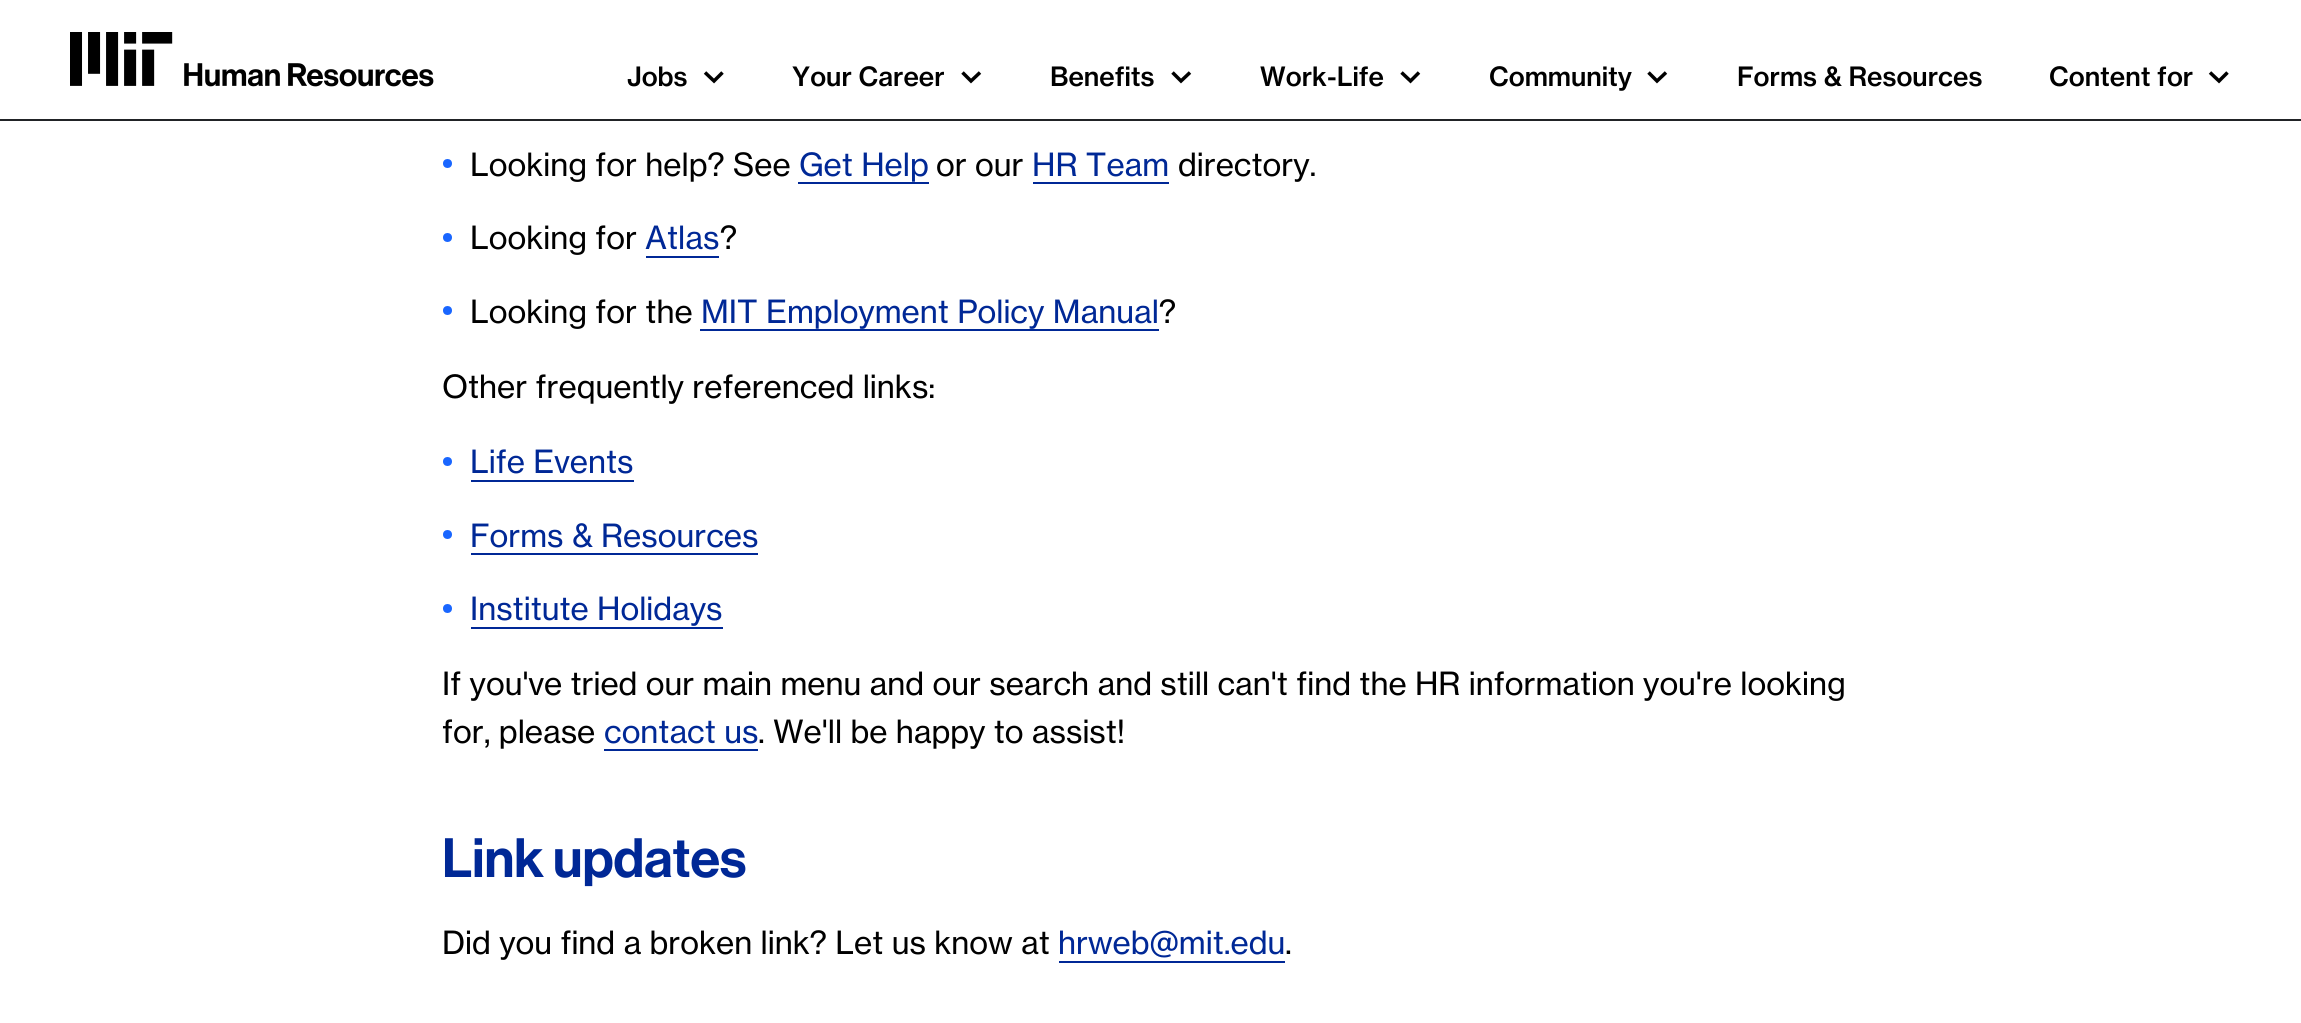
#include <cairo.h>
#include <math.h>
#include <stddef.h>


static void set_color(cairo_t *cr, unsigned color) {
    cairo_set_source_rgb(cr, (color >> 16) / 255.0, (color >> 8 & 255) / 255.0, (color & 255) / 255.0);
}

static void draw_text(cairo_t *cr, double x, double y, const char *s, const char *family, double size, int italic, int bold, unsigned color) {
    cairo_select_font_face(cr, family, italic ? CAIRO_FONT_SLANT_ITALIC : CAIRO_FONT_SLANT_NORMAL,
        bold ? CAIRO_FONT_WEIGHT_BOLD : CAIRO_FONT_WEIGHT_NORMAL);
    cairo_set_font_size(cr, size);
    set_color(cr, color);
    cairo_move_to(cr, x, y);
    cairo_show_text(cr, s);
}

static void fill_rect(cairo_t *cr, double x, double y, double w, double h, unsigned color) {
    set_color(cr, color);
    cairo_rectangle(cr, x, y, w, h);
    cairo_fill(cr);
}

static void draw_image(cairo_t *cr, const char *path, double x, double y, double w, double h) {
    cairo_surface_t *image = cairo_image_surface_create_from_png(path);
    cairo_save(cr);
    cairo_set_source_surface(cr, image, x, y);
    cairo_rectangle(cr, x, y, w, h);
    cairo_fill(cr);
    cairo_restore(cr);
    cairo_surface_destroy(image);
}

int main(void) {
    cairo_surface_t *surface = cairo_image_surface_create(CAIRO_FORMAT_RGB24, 2301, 1023);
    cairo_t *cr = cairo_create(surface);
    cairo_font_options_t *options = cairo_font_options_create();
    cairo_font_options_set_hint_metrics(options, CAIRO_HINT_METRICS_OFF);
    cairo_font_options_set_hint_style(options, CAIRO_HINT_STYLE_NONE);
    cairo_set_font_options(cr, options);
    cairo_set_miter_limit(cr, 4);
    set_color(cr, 0xFFFFFF);
    cairo_paint(cr);
    fill_rect(cr, 0, 119, 2301, 2, 0x212326);
    draw_image(cr, "assets/img1.png", 70, 32, 364, 55);
    draw_text(cr, 627, 86, "Jobs", "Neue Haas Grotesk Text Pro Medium", 26.25, 0, 0, 0x000000);
    cairo_new_path(cr);
    cairo_move_to(cr, 722.5, 72.5);
    cairo_line_to(cr, 714, 81);
    cairo_line_to(cr, 705, 72.5);
    cairo_set_line_width(cr, 3.5);
    cairo_stroke(cr);
    draw_text(cr, 792, 86, "Your Career", "Neue Haas Grotesk Text Pro Medium", 26.25, 0, 0, 0x000000);
    cairo_new_path(cr);
    cairo_move_to(cr, 980, 72.5);
    cairo_line_to(cr, 971, 81);
    cairo_line_to(cr, 962.5, 72.5);
    cairo_stroke(cr);
    draw_text(cr, 1050, 86, "Benefits", "Neue Haas Grotesk Text Pro Medium", 26.25, 0, 0, 0x000000);
    cairo_new_path(cr);
    cairo_move_to(cr, 1190, 72.5);
    cairo_line_to(cr, 1181, 81);
    cairo_line_to(cr, 1172.5, 72.5);
    cairo_stroke(cr);
    draw_text(cr, 1260, 86, "Work-Life", "Neue Haas Grotesk Text Pro Medium", 26.25, 0, 0, 0x000000);
    cairo_new_path(cr);
    cairo_move_to(cr, 1419, 72.5);
    cairo_line_to(cr, 1410.5, 81);
    cairo_line_to(cr, 1401.5, 72.5);
    cairo_stroke(cr);
    draw_text(cr, 1489, 86, "Community", "Neue Haas Grotesk Text Pro Medium", 26.25, 0, 0, 0x000000);
    cairo_new_path(cr);
    cairo_move_to(cr, 1666, 72.5);
    cairo_line_to(cr, 1657, 81);
    cairo_line_to(cr, 1648.5, 72.5);
    cairo_stroke(cr);
    draw_text(cr, 1737, 86, "Forms & Resources", "Neue Haas Grotesk Text Pro Medium", 26.25, 0, 0, 0x000000);
    draw_text(cr, 2049, 86, "Content for", "Neue Haas Grotesk Text Pro Medium", 26.25, 0, 0, 0x000000);
    cairo_new_path(cr);
    cairo_move_to(cr, 2227.5, 72.5);
    cairo_line_to(cr, 2219, 81);
    cairo_line_to(cr, 2210, 72.5);
    cairo_stroke(cr);
    set_color(cr, 0x1966FF);
    cairo_arc(cr, 447.5, 163.5, 4.5, 0, 2 * M_PI);
    cairo_fill(cr);
    draw_text(cr, 470, 176, "Looking for help? See", "Neue Haas Grotesk Text Pro", 31.5, 0, 0, 0x000000);
    draw_text(cr, 799, 176, "Get Help", "Neue Haas Grotesk Text Pro", 31.5, 0, 0, 0x002896);
    fill_rect(cr, 798, 182, 131, 2, 0x002896);
    draw_text(cr, 936, 176, "or our", "Neue Haas Grotesk Text Pro", 31.5, 0, 0, 0x000000);
    draw_text(cr, 1032, 176, "HR Team", "Neue Haas Grotesk Text Pro", 31.5, 0, 0, 0x002896);
    fill_rect(cr, 1033, 182, 136, 2, 0x002896);
    draw_text(cr, 1178, 176, "directory.", "Neue Haas Grotesk Text Pro", 31.5, 0, 0, 0x000000);
    set_color(cr, 0x1966FF);
    cairo_new_path(cr);
    cairo_arc(cr, 447.5, 237.5, 4.5, 0, 2 * M_PI);
    cairo_fill(cr);
    draw_text(cr, 470, 249, "Looking for", "Neue Haas Grotesk Text Pro", 31.5, 0, 0, 0x000000);
    draw_text(cr, 645, 249, "Atlas", "Neue Haas Grotesk Text Pro", 31.5, 0, 0, 0x002896);
    fill_rect(cr, 646, 256, 73, 2, 0x002896);
    draw_text(cr, 720, 249, "?", "Neue Haas Grotesk Text Pro", 31.5, 0, 0, 0x000000);
    set_color(cr, 0x1966FF);
    cairo_new_path(cr);
    cairo_arc(cr, 447.5, 310.5, 4.5, 0, 2 * M_PI);
    cairo_fill(cr);
    draw_text(cr, 470, 323, "Looking for the", "Neue Haas Grotesk Text Pro", 31.5, 0, 0, 0x000000);
    draw_text(cr, 701, 323, "MIT Employment Policy Manual", "Neue Haas Grotesk Text Pro", 31.5, 0, 0, 0x002896);
    fill_rect(cr, 700, 329, 459, 2, 0x002896);
    draw_text(cr, 1159, 323, "?", "Neue Haas Grotesk Text Pro", 31.5, 0, 0, 0x000000);
    draw_text(cr, 442, 398, "Other frequently referenced links:", "Neue Haas Grotesk Text Pro", 31.5, 0, 0, 0x000000);
    set_color(cr, 0x1966FF);
    cairo_new_path(cr);
    cairo_arc(cr, 447.5, 461.5, 4.5, 0, 2 * M_PI);
    cairo_fill(cr);
    draw_text(cr, 470, 473, "Life Events", "Neue Haas Grotesk Text Pro", 31.5, 0, 0, 0x002896);
    fill_rect(cr, 471, 480, 163, 2, 0x002896);
    set_color(cr, 0x1966FF);
    cairo_new_path(cr);
    cairo_arc(cr, 447.5, 534.5, 4.5, 0, 2 * M_PI);
    cairo_fill(cr);
    draw_text(cr, 470, 547, "Forms & Resources", "Neue Haas Grotesk Text Pro", 31.5, 0, 0, 0x002896);
    fill_rect(cr, 471, 553, 287, 2, 0x002896);
    set_color(cr, 0x1966FF);
    cairo_new_path(cr);
    cairo_arc(cr, 447.5, 608.5, 4.5, 0, 2 * M_PI);
    cairo_fill(cr);
    draw_text(cr, 470, 620, "Institute Holidays", "Neue Haas Grotesk Text Pro", 31.5, 0, 0, 0x002896);
    fill_rect(cr, 471, 627, 252, 2, 0x002896);
    draw_text(cr, 442, 695, "If you've tried our main menu and our search and still can't find the HR information you're looking", "Neue Haas Grotesk Text Pro", 31.5, 0, 0, 0x000000);
    draw_text(cr, 442, 743, "for, please", "Neue Haas Grotesk Text Pro", 31.5, 0, 0, 0x000000);
    draw_text(cr, 604, 743, "contact us", "Neue Haas Grotesk Text Pro", 31.5, 0, 0, 0x002896);
    fill_rect(cr, 604, 749, 154, 2, 0x002896);
    draw_text(cr, 758, 743, ". We'll be happy to assist!", "Neue Haas Grotesk Text Pro", 31.5, 0, 0, 0x000000);
    draw_text(cr, 442, 877, "Link updates", "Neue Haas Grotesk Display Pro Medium", 54.25, 0, 0, 0x002896);
    draw_text(cr, 442, 954, "Did you find a broken link? Let us know at", "Neue Haas Grotesk Text Pro", 31.5, 0, 0, 0x000000);
    draw_text(cr, 1058, 954, "hrweb@mit.edu", "Neue Haas Grotesk Text Pro", 31.5, 0, 0, 0x002896);
    fill_rect(cr, 1059, 961, 226, 2, 0x002896);
    draw_text(cr, 1285, 954, ".", "Neue Haas Grotesk Text Pro", 31.5, 0, 0, 0x000000);
    cairo_surface_write_to_png(surface, "output.png");
    cairo_font_options_destroy(options);
    cairo_destroy(cr);
    cairo_surface_destroy(surface);
    return 0;
}
